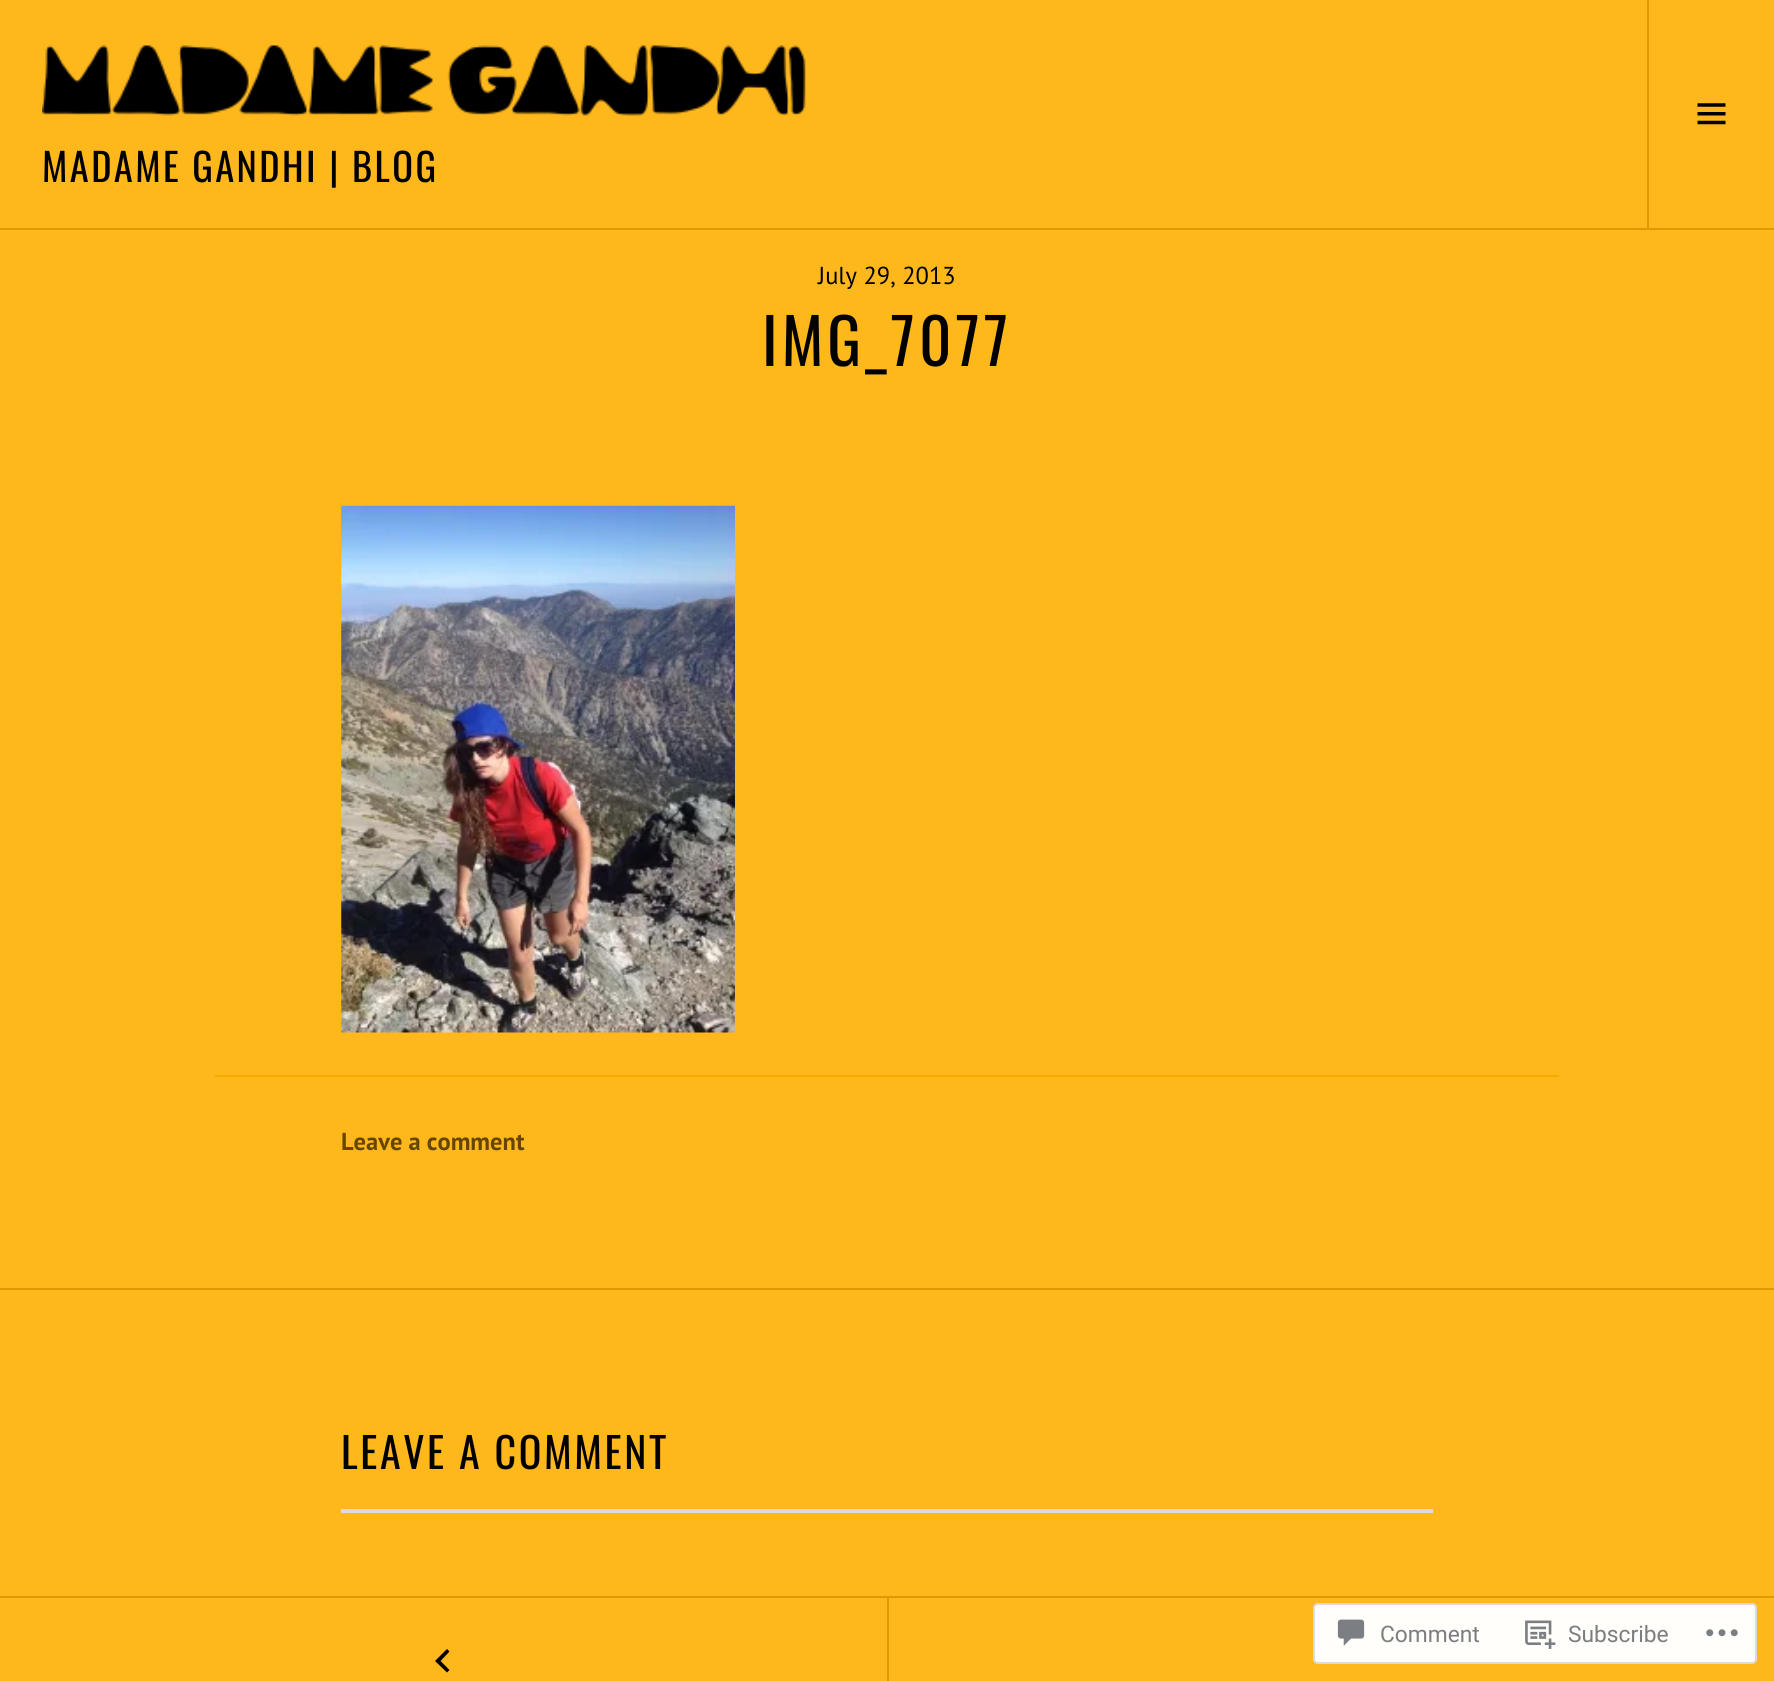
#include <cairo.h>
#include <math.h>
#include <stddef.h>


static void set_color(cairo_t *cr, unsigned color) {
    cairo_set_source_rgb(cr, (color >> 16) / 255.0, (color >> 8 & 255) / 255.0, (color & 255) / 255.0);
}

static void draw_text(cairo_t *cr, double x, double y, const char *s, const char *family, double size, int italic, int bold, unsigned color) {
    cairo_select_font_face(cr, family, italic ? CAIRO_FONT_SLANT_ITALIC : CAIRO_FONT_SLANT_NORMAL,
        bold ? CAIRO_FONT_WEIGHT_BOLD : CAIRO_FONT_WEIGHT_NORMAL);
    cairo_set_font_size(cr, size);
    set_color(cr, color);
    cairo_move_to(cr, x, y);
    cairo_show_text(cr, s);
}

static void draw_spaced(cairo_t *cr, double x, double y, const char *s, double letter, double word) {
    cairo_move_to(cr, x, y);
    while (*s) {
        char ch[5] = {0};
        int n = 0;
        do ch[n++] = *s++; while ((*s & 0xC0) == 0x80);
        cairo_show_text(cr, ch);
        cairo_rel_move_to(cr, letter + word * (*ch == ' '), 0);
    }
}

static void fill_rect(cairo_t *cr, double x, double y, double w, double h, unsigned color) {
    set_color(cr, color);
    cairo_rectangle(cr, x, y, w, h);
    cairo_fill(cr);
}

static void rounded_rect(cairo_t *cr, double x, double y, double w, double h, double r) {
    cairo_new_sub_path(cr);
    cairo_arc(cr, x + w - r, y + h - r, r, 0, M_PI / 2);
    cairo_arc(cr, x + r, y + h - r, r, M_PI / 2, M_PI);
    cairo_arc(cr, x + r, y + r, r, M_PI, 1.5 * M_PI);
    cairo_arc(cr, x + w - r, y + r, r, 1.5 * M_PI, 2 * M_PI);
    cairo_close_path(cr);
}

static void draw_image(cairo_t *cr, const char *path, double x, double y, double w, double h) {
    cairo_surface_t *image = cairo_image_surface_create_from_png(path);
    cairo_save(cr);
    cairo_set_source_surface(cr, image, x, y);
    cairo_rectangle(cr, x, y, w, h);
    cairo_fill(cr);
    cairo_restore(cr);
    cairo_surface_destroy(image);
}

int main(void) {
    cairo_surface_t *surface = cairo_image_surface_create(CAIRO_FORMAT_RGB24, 1774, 1681);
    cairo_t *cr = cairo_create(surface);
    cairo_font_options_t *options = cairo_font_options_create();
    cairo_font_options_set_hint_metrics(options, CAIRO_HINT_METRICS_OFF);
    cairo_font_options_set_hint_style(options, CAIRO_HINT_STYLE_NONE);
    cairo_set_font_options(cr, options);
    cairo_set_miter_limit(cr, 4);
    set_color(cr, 0xFFB81C);
    cairo_paint(cr);
    fill_rect(cr, 0, 228, 1774, 2, 0xE09900);
    draw_image(cr, "assets/img1.png", 42, 45, 764, 71);
    cairo_select_font_face(cr, "Oswald", CAIRO_FONT_SLANT_NORMAL, CAIRO_FONT_WEIGHT_NORMAL);
    cairo_set_font_size(cr, 38.5);
    set_color(cr, 0x000000);
    draw_spaced(cr, 42, 182, "MADAME GANDHI | BLOG", 2.4, 0);
    fill_rect(cr, 1647, 0, 2, 228, 0xE09900);
    draw_image(cr, "assets/img2.png", 1697, 103, 29, 22);
    draw_text(cr, 818, 284, "July 29, 2013", "PT Sans", 24.5, 0, 0, 0x000000);
    cairo_select_font_face(cr, "Oswald", CAIRO_FONT_SLANT_NORMAL, CAIRO_FONT_WEIGHT_NORMAL);
    cairo_set_font_size(cr, 63);
    draw_spaced(cr, 762, 366, "IMG_7077", 4, 0);
    draw_image(cr, "assets/img3.png", 341, 505, 394, 528);
    fill_rect(cr, 215, 1075, 1344, 2, 0xF9AA00);
    draw_text(cr, 341, 1150, "Leave a comment", "PT Sans", 24.5, 0, 1, 0x664500);
    fill_rect(cr, 0, 1288, 1774, 2, 0xE09900);
    cairo_select_font_face(cr, "Oswald", CAIRO_FONT_SLANT_NORMAL, CAIRO_FONT_WEIGHT_NORMAL);
    cairo_set_font_size(cr, 42);
    set_color(cr, 0x000000);
    draw_spaced(cr, 341, 1469, "LEAVE A COMMENT", 2.6, 0);
    fill_rect(cr, 341, 1509, 1092, 4, 0xDCDCDE);
    fill_rect(cr, 0, 1596, 1774, 2, 0xE09900);
    set_color(cr, 0x000000);
    cairo_new_path(cr);
    cairo_move_to(cr, 449.5, 1670);
    cairo_line_to(cr, 447, 1672.5);
    cairo_line_to(cr, 435, 1661);
    cairo_line_to(cr, 447, 1649);
    cairo_line_to(cr, 449.5, 1651.5);
    cairo_line_to(cr, 440.5, 1661);
    cairo_close_path(cr);
    cairo_fill(cr);
    fill_rect(cr, 887, 1598, 2, 83, 0xE09900);
    set_color(cr, 0xFFFEFA);
    rounded_rect(cr, 1314, 1604, 442, 59, 4);
    cairo_fill_preserve(cr);
    set_color(cr, 0xDDDBDA);
    cairo_stroke(cr);
    draw_image(cr, "assets/img4.png", 1337, 1619, 28, 27);
    draw_text(cr, 1380, 1642, "Comment", "Roboto", 22.75, 0, 0, 0x7B7D80);
    draw_image(cr, "assets/img5.png", 1525, 1620, 31, 29);
    draw_text(cr, 1568, 1642, "Subscribe", "Roboto", 22.75, 0, 0, 0x7B7D80);
    draw_image(cr, "assets/img6.png", 1706, 1629, 32, 8);
    cairo_surface_write_to_png(surface, "output.png");
    cairo_font_options_destroy(options);
    cairo_destroy(cr);
    cairo_surface_destroy(surface);
    return 0;
}
